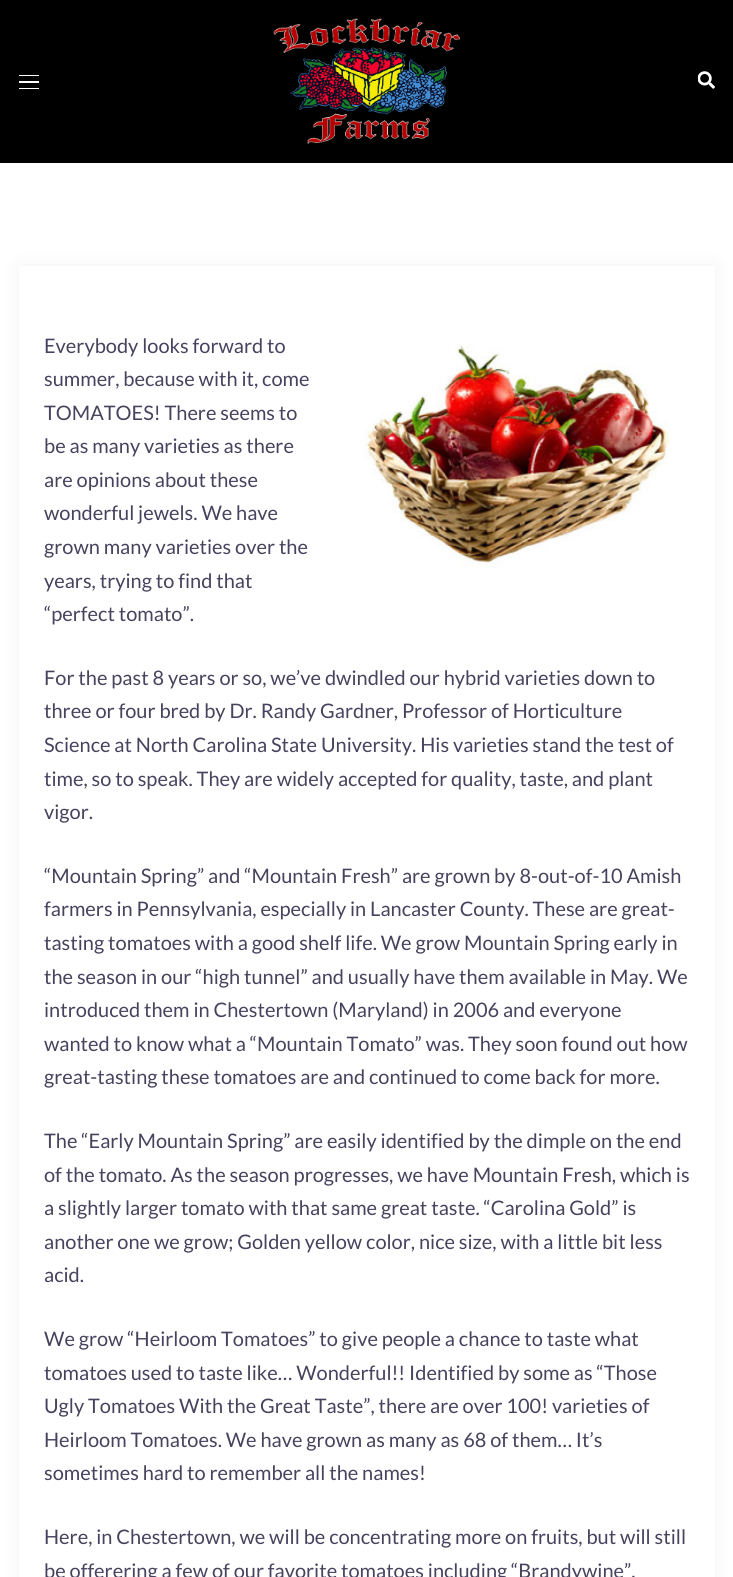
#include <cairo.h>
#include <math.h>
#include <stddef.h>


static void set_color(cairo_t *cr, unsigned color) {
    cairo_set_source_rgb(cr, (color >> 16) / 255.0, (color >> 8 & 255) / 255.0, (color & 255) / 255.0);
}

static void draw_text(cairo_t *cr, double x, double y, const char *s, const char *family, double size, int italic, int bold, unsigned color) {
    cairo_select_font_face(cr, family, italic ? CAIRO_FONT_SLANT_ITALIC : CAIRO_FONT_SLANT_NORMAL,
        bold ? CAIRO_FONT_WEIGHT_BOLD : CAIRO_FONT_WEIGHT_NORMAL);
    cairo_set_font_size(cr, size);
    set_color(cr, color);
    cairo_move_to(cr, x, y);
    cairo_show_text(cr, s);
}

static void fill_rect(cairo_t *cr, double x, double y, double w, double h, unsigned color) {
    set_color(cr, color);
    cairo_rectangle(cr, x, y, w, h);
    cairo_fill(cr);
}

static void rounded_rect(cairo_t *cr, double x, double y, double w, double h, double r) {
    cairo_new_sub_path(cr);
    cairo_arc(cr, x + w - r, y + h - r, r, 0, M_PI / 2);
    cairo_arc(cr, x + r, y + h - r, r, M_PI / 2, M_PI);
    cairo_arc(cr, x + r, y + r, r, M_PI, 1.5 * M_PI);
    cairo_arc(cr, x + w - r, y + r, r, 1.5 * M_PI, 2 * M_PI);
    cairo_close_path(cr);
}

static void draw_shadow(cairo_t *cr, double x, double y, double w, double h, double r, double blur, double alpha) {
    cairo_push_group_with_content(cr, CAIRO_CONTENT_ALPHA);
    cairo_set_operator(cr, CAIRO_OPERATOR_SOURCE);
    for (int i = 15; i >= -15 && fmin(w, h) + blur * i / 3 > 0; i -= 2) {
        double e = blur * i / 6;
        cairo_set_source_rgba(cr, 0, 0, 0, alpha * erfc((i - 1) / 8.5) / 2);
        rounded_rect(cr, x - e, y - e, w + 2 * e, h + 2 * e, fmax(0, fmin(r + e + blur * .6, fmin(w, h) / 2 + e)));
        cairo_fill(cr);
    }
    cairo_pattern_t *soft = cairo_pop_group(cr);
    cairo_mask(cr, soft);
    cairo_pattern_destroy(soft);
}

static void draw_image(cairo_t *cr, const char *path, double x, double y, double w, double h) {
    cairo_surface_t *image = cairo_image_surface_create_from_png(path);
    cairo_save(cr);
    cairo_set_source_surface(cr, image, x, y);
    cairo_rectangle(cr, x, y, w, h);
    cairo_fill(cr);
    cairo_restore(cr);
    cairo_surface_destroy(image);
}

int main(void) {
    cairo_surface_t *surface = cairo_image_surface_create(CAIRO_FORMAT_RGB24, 733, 1577);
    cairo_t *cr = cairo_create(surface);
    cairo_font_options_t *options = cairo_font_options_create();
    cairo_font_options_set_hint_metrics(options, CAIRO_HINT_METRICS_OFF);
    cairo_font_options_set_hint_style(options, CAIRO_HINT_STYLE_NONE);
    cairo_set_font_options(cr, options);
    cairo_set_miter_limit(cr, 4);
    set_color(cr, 0xFFFFFF);
    cairo_paint(cr);
    fill_rect(cr, 0, 0, 733, 163, 0x000000);
    fill_rect(cr, 19, 75, 20, 1, 0xFFFFFF);
    fill_rect(cr, 19, 81, 20, 2, 0xFFFFFF);
    fill_rect(cr, 19, 88, 20, 1, 0xFFFFFF);
    draw_image(cr, "assets/img1.png", 273, 18, 187, 126);
    draw_image(cr, "assets/img2.png", 698, 71, 17, 18);
    set_color(cr, 0x000000);
    draw_shadow(cr, 19, 266, 696, 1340, 0, 9.5, 0.05);
    fill_rect(cr, 19, 266, 696, 1311, 0xFFFFFF);
    draw_text(cr, 44, 353, "Everybody looks forward to", "Lato", 20, 0, 0, 0x47425D);
    draw_image(cr, "assets/img3.png", 363, 344, 307, 224);
    draw_text(cr, 44, 386, "summer, because with it, come", "Lato", 20, 0, 0, 0x47425D);
    draw_text(cr, 44, 420, "TOMATOES! There seems to", "Lato", 20, 0, 0, 0x47425D);
    draw_text(cr, 44, 453, "be as many varieties as there", "Lato", 20, 0, 0, 0x47425D);
    draw_text(cr, 44, 487, "are opinions about these", "Lato", 20, 0, 0, 0x47425D);
    draw_text(cr, 44, 520, "wonderful jewels. We have", "Lato", 20, 0, 0, 0x47425D);
    draw_text(cr, 44, 554, "grown many varieties over the", "Lato", 20, 0, 0, 0x47425D);
    draw_text(cr, 44, 588, "years, trying to find that", "Lato", 20, 0, 0, 0x47425D);
    draw_text(cr, 44, 621, "“perfect tomato”.", "Lato", 20, 0, 0, 0x47425D);
    draw_text(cr, 44, 685, "For the past 8 years or so, we’ve dwindled our hybrid varieties down to", "Lato", 20, 0, 0, 0x47425D);
    draw_text(cr, 44, 718, "three or four bred by Dr. Randy Gardner, Professor of Horticulture", "Lato", 20, 0, 0, 0x47425D);
    draw_text(cr, 44, 752, "Science at North Carolina State University. His varieties stand the test of", "Lato", 20, 0, 0, 0x47425D);
    draw_text(cr, 44, 786, "time, so to speak. They are widely accepted for quality, taste, and plant", "Lato", 20, 0, 0, 0x47425D);
    draw_text(cr, 44, 819, "vigor.", "Lato", 20, 0, 0, 0x47425D);
    draw_text(cr, 44, 883, "“Mountain Spring” and “Mountain Fresh” are grown by 8-out-of-10 Amish", "Lato", 20, 0, 0, 0x47425D);
    draw_text(cr, 44, 916, "farmers in Pennsylvania, especially in Lancaster County. These are great-", "Lato", 20, 0, 0, 0x47425D);
    draw_text(cr, 44, 950, "tasting tomatoes with a good shelf life. We grow Mountain Spring early in", "Lato", 20, 0, 0, 0x47425D);
    draw_text(cr, 44, 984, "the season in our “high tunnel” and usually have them available in May. We", "Lato", 20, 0, 0, 0x47425D);
    draw_text(cr, 44, 1017, "introduced them in Chestertown (Maryland) in 2006 and everyone", "Lato", 20, 0, 0, 0x47425D);
    draw_text(cr, 44, 1051, "wanted to know what a “Mountain Tomato” was. They soon found out how", "Lato", 20, 0, 0, 0x47425D);
    draw_text(cr, 44, 1084, "great-tasting these tomatoes are and continued to come back for more.", "Lato", 20, 0, 0, 0x47425D);
    draw_text(cr, 44, 1148, "The “Early Mountain Spring” are easily identified by the dimple on the end", "Lato", 20, 0, 0, 0x47425D);
    draw_text(cr, 44, 1182, "of the tomato. As the season progresses, we have Mountain Fresh, which is", "Lato", 20, 0, 0, 0x47425D);
    draw_text(cr, 44, 1215, "a slightly larger tomato with that same great taste. “Carolina Gold” is", "Lato", 20, 0, 0, 0x47425D);
    draw_text(cr, 44, 1249, "another one we grow; Golden yellow color, nice size, with a little bit less", "Lato", 20, 0, 0, 0x47425D);
    draw_text(cr, 44, 1282, "acid.", "Lato", 20, 0, 0, 0x47425D);
    draw_text(cr, 44, 1346, "We grow “Heirloom Tomatoes” to give people a chance to taste what", "Lato", 20, 0, 0, 0x47425D);
    draw_text(cr, 44, 1380, "tomatoes used to taste like… Wonderful!! Identified by some as “Those", "Lato", 20, 0, 0, 0x47425D);
    draw_text(cr, 44, 1413, "Ugly Tomatoes With the Great Taste”, there are over 100! varieties of", "Lato", 20, 0, 0, 0x47425D);
    draw_text(cr, 44, 1447, "Heirloom Tomatoes. We have grown as many as 68 of them… It’s", "Lato", 20, 0, 0, 0x47425D);
    draw_text(cr, 44, 1480, "sometimes hard to remember all the names!", "Lato", 20, 0, 0, 0x47425D);
    draw_text(cr, 44, 1544, "Here, in Chestertown, we will be concentrating more on fruits, but will still", "Lato", 20, 0, 0, 0x47425D);
    draw_text(cr, 44, 1578, "be offerering a few of our favorite tomatoes including “Brandywine”,", "Lato", 20, 0, 0, 0x47425D);
    cairo_surface_write_to_png(surface, "output.png");
    cairo_font_options_destroy(options);
    cairo_destroy(cr);
    cairo_surface_destroy(surface);
    return 0;
}
